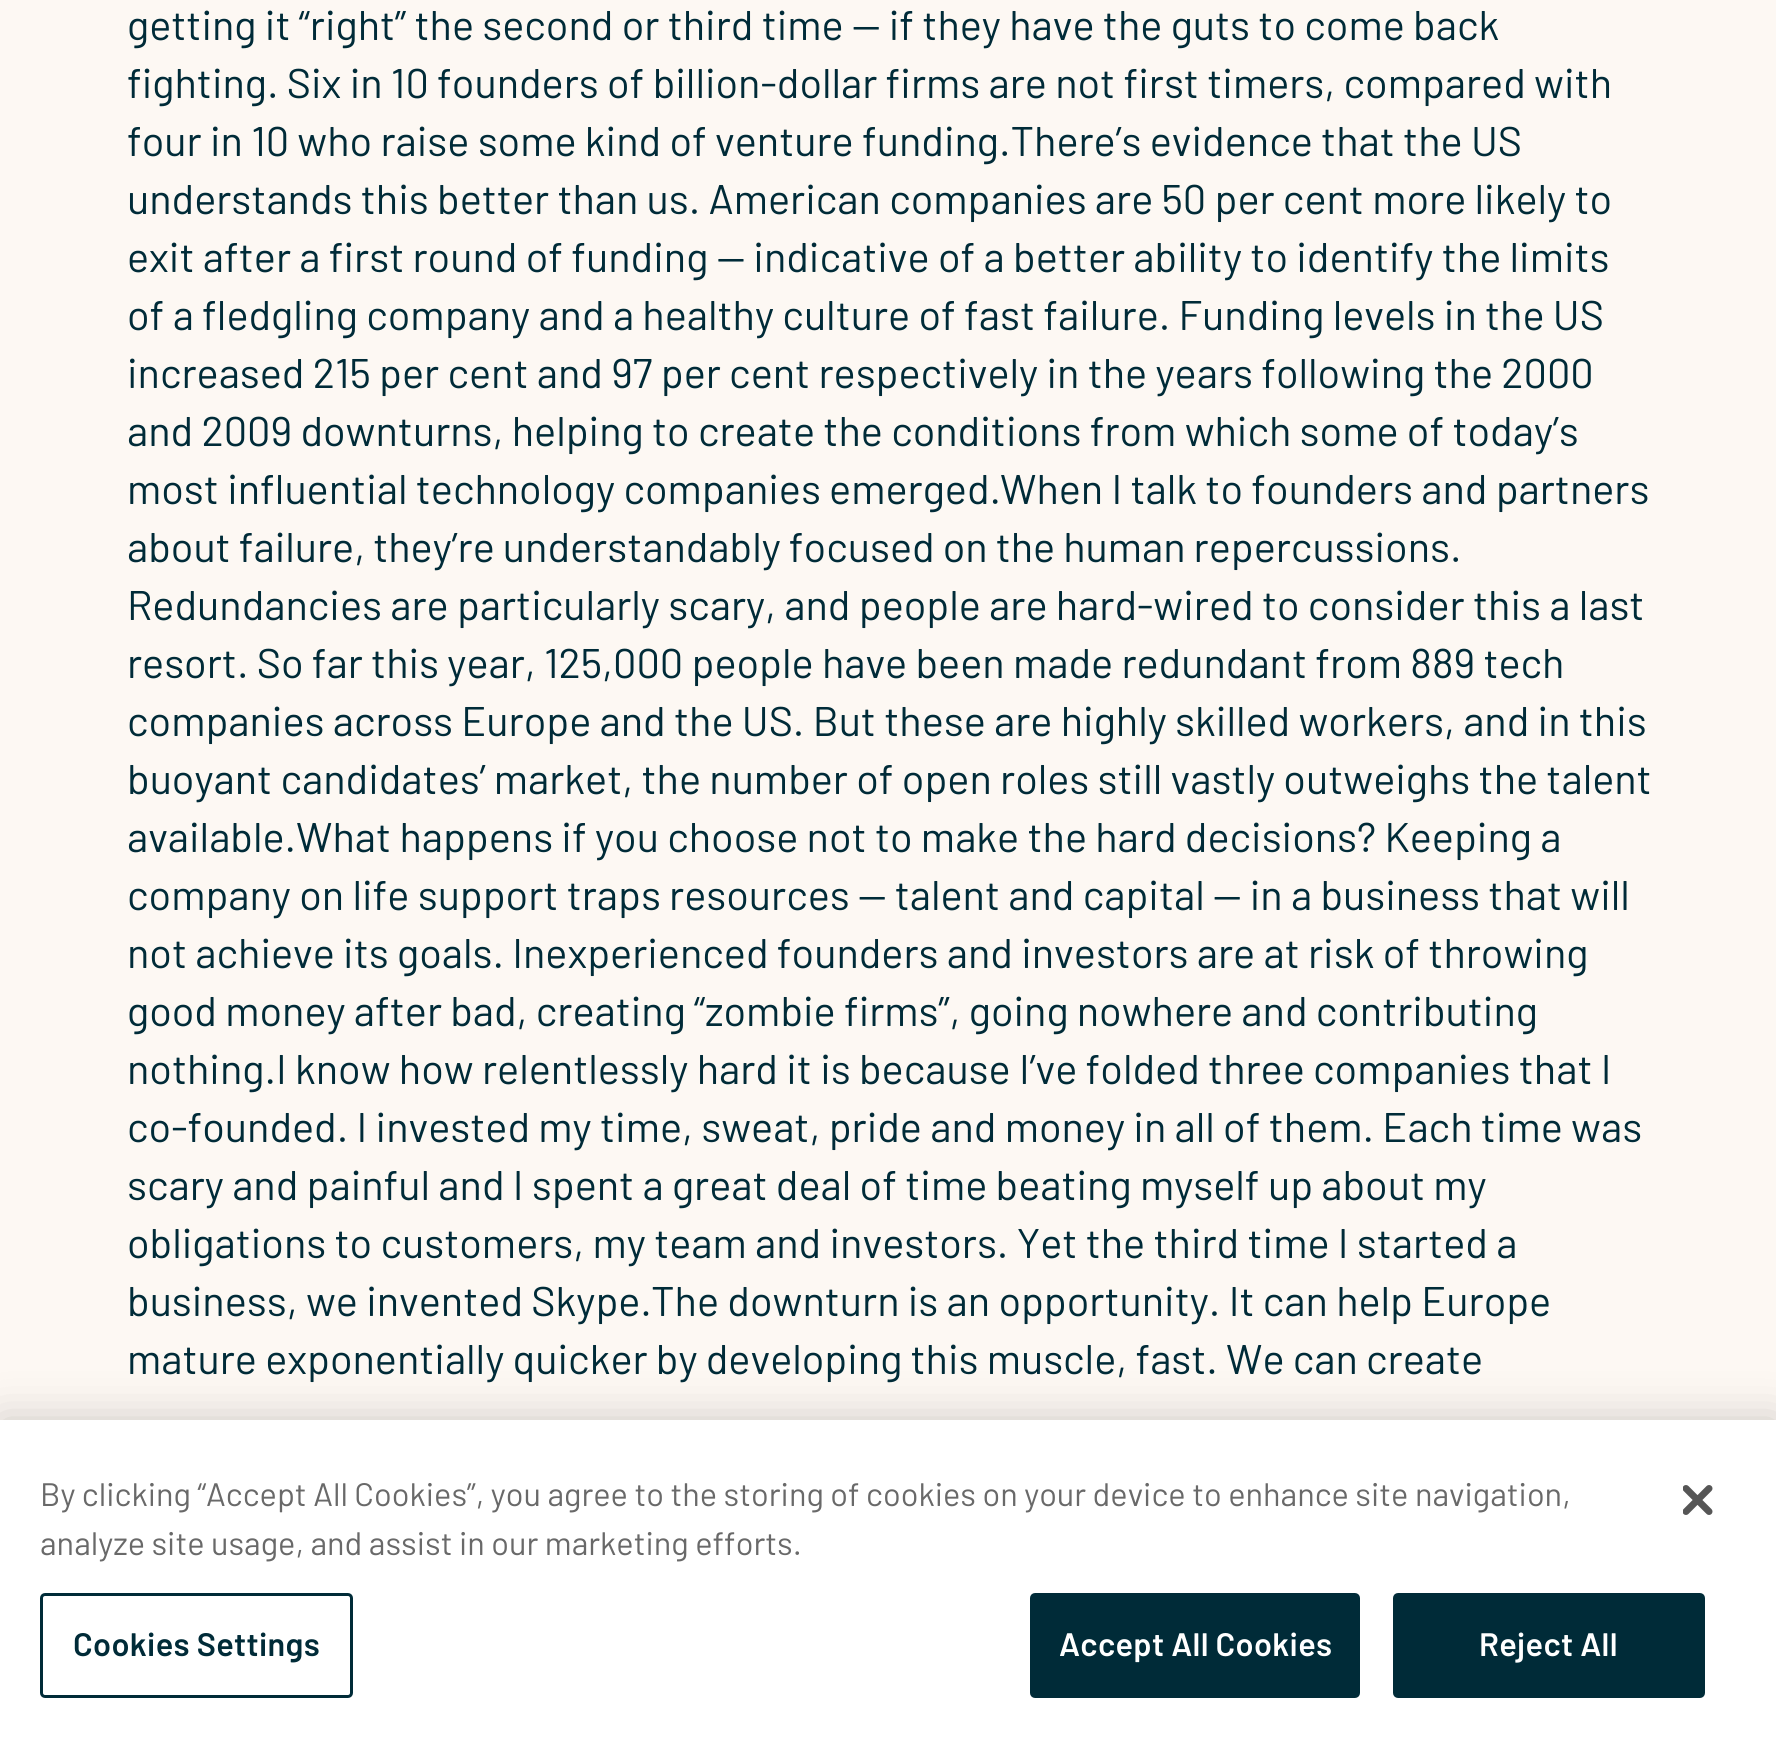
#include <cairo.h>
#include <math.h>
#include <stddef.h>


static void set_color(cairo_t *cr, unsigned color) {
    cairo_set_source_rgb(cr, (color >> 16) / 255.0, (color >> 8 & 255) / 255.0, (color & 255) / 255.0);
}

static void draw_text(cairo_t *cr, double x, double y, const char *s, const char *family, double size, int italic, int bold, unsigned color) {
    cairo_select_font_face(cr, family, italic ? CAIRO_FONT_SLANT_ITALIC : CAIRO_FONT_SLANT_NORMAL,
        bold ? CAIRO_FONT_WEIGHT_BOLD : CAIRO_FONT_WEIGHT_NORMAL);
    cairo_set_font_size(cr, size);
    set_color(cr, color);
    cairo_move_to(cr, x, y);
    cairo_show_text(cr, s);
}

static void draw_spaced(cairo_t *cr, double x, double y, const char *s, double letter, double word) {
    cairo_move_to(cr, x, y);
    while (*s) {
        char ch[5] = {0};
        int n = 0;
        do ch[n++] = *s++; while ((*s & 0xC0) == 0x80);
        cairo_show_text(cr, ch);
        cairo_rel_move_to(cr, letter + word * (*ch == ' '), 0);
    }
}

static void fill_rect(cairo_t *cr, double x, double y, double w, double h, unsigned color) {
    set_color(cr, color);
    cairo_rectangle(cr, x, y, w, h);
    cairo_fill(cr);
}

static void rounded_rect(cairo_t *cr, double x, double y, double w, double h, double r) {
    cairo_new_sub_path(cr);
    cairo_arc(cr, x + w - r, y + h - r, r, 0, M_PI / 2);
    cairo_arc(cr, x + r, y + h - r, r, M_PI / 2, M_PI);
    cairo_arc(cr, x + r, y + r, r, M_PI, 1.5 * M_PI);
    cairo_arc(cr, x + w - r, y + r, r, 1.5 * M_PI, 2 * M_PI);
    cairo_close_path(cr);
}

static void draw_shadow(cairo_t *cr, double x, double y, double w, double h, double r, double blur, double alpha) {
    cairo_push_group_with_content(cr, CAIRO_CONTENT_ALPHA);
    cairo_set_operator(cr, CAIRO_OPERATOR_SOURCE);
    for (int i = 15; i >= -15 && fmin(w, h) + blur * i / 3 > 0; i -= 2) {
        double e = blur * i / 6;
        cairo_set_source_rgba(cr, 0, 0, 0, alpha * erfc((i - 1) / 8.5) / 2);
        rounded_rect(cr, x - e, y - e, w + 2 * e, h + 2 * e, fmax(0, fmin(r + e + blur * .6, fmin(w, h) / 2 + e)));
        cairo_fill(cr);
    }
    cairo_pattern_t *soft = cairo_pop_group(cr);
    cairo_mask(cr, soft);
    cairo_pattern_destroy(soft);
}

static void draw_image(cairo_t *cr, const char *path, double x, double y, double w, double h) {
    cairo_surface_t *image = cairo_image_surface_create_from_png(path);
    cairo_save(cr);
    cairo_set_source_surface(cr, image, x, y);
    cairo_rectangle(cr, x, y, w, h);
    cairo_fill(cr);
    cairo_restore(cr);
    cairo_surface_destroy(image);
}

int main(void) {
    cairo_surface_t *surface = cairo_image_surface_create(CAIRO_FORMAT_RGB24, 1776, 1744);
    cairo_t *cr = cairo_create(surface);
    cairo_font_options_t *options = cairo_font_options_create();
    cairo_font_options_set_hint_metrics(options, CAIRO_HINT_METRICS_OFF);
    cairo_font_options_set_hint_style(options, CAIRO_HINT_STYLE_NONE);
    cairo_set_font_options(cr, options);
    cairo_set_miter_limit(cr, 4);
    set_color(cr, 0xFDF8F3);
    cairo_paint(cr);
    draw_text(cr, 127, 40, "getting it “right” the second or third time — if they have the guts to come back", "Barlow", 41.45, 0, 0, 0x002B38);
    draw_text(cr, 127, 98, "fighting. Six in 10 founders of billion-dollar firms are not first timers, compared with", "Barlow", 41.45, 0, 0, 0x002B38);
    draw_text(cr, 127, 156, "four in 10 who raise some kind of venture funding.There’s evidence that the US", "Barlow", 41.45, 0, 0, 0x002B38);
    draw_text(cr, 127, 214, "understands this better than us. American companies are 50 per cent more likely to", "Barlow", 41.45, 0, 0, 0x002B38);
    draw_text(cr, 127, 272, "exit after a first round of funding — indicative of a better ability to identify the limits", "Barlow", 41.45, 0, 0, 0x002B38);
    draw_text(cr, 127, 330, "of a fledgling company and a healthy culture of fast failure. Funding levels in the US", "Barlow", 41.45, 0, 0, 0x002B38);
    draw_text(cr, 127, 388, "increased 215 per cent and 97 per cent respectively in the years following the 2000", "Barlow", 41.45, 0, 0, 0x002B38);
    draw_text(cr, 127, 446, "and 2009 downturns, helping to create the conditions from which some of today’s", "Barlow", 41.45, 0, 0, 0x002B38);
    draw_text(cr, 127, 504, "most influential technology companies emerged.", "Barlow", 41.45, 0, 0, 0x002B38);
    draw_text(cr, 1000, 504, "When I talk to founders and partners", "Barlow", 41.45, 0, 0, 0x002B38);
    draw_spaced(cr, 127, 562, "about failure, they’re understandably focused on the human repercussions.", 0, -0.25);
    draw_text(cr, 127, 620, "Redundancies are particularly scary, and people are hard-wired to consider this a last", "Barlow", 41.45, 0, 0, 0x002B38);
    draw_text(cr, 127, 678, "resort. So far this year,", "Barlow", 41.45, 0, 0, 0x002B38);
    draw_text(cr, 544, 678, "125,000 people have been made redundant from 889 tech", "Barlow", 41.45, 0, 0, 0x002B38);
    draw_text(cr, 127, 736, "companies across Europe and the US. But these are highly skilled workers, and in this", "Barlow", 41.45, 0, 0, 0x002B38);
    draw_text(cr, 127, 794, "buoyant candidates’ market, the number of open roles still vastly outweighs the talent", "Barlow", 41.45, 0, 0, 0x002B38);
    draw_text(cr, 127, 852, "available.What happens if you choose not to make the hard decisions? Keeping a", "Barlow", 41.45, 0, 0, 0x002B38);
    draw_text(cr, 127, 910, "company on life support traps resources — talent and capital — in a business that will", "Barlow", 41.45, 0, 0, 0x002B38);
    draw_text(cr, 127, 968, "not achieve its goals. Inexperienced founders and investors are at risk of throwing", "Barlow", 41.45, 0, 0, 0x002B38);
    draw_spaced(cr, 127, 1026, "good money after bad, creating “zombie firms”, going nowhere and contributing", 0, -0.1);
    draw_text(cr, 127, 1084, "nothing.I know how relentlessly hard it is because I’ve folded three companies that I", "Barlow", 41.45, 0, 0, 0x002B38);
    draw_text(cr, 127, 1142, "co-founded. I invested my time, sweat, pride and money in all of them. Each time was", "Barlow", 41.45, 0, 0, 0x002B38);
    draw_text(cr, 127, 1200, "scary and painful and I spent a great deal of time beating myself up about my", "Barlow", 41.45, 0, 0, 0x002B38);
    draw_text(cr, 127, 1258, "obligations to customers, my team and investors. Yet the third time I started a", "Barlow", 41.45, 0, 0, 0x002B38);
    draw_text(cr, 127, 1316, "business, we invented Skype.", "Barlow", 41.45, 0, 0, 0x002B38);
    draw_text(cr, 651, 1316, "The downturn is an opportunity. It can help Europe", "Barlow", 41.45, 0, 0, 0x002B38);
    draw_spaced(cr, 127, 1374, "mature exponentially quicker by developing this muscle, fast. We can create", 0, -0.1);
    set_color(cr, 0x000000);
    draw_shadow(cr, 0, 1420, 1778, 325, 0, 22.5, 0.2);
    fill_rect(cr, 0, 1420, 1776, 324, 0xFFFFFF);
    draw_text(cr, 40, 1506, "By clicking “Accept All Cookies”, you agree to the storing of cookies on your device to enhance site navigation,", "Barlow", 32.5, 0, 0, 0x696969);
    draw_text(cr, 40, 1555, "analyze site usage, and assist in our marketing efforts.", "Barlow", 32.5, 0, 0, 0x696969);
    rounded_rect(cr, 41.5, 1594.5, 310, 102, 3.5);
    set_color(cr, 0x002B38);
    cairo_set_line_width(cr, 3);
    cairo_stroke(cr);
    cairo_select_font_face(cr, "Barlow SemiBold", CAIRO_FONT_SLANT_NORMAL, CAIRO_FONT_WEIGHT_NORMAL);
    draw_spaced(cr, 73, 1656, "Cookies Settings", 0.3, 0);
    rounded_rect(cr, 1031.5, 1594.5, 327, 102, 3.5);
    cairo_fill_preserve(cr);
    cairo_stroke(cr);
    set_color(cr, 0xFFFFFF);
    draw_spaced(cr, 1059, 1656, "Accept All Cookies", 0.3, 0);
    set_color(cr, 0x002B38);
    rounded_rect(cr, 1394.5, 1594.5, 309, 102, 3.5);
    cairo_fill_preserve(cr);
    cairo_stroke(cr);
    set_color(cr, 0xFFFFFF);
    draw_spaced(cr, 1479, 1656, "Reject All", 0.3, 0);
    draw_image(cr, "assets/img1.png", 1683, 1485, 30, 30);
    cairo_surface_write_to_png(surface, "output.png");
    cairo_font_options_destroy(options);
    cairo_destroy(cr);
    cairo_surface_destroy(surface);
    return 0;
}
